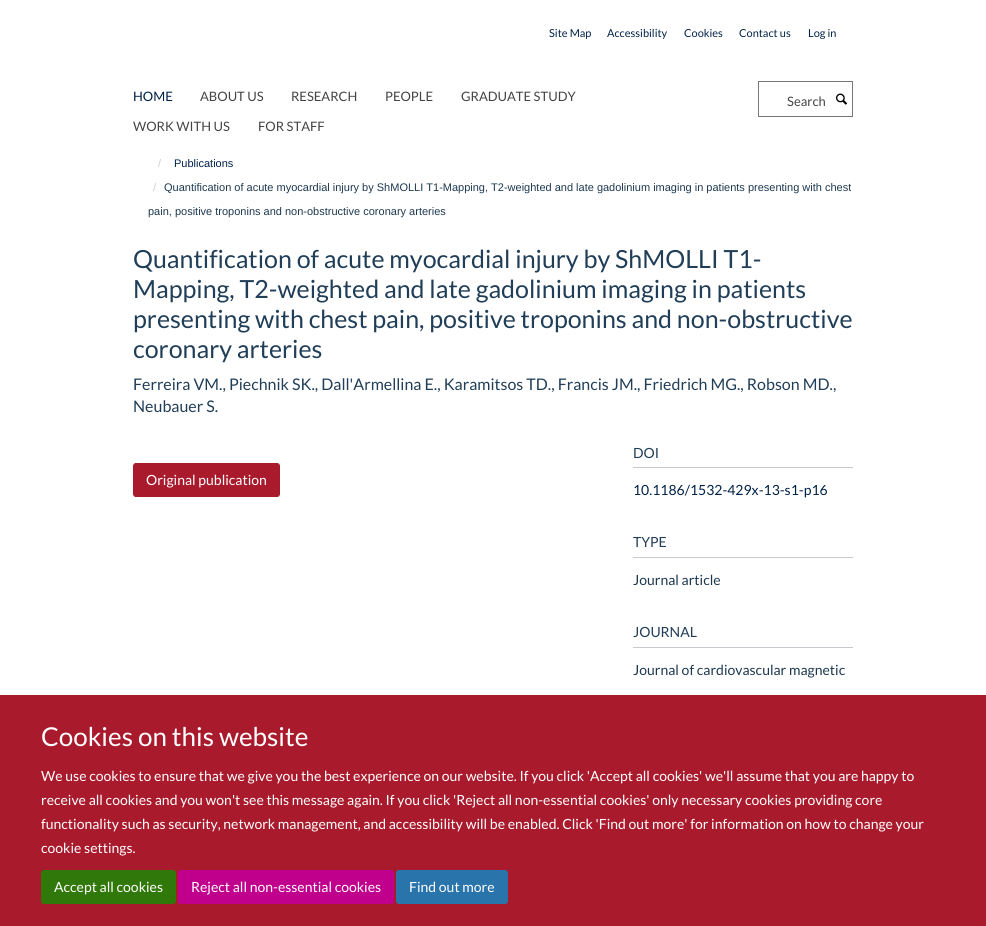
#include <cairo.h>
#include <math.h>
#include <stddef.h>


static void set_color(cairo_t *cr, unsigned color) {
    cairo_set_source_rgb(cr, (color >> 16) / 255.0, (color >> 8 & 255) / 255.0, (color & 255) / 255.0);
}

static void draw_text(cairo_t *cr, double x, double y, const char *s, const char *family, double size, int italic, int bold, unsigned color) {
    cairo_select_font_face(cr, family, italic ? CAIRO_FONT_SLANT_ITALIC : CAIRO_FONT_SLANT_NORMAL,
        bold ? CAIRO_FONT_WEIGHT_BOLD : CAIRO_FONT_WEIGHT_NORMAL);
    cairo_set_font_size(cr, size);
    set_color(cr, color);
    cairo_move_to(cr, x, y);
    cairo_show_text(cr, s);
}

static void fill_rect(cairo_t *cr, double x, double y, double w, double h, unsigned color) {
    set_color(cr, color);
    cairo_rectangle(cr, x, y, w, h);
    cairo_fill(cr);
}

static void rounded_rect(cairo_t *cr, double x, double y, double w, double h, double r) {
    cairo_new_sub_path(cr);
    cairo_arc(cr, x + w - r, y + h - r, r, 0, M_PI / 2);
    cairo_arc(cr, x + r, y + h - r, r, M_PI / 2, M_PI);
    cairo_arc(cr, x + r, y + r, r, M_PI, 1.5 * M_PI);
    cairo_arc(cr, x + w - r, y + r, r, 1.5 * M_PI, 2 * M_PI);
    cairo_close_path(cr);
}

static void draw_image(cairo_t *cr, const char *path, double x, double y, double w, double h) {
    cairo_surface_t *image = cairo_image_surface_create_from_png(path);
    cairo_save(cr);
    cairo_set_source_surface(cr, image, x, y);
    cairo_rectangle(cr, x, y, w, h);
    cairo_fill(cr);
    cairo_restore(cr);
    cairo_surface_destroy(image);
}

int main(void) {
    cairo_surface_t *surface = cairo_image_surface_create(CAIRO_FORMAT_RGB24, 986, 926);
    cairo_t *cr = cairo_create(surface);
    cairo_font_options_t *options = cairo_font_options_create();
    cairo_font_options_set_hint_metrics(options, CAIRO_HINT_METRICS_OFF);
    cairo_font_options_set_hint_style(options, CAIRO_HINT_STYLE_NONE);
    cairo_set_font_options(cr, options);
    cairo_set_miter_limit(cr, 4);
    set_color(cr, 0xFFFFFF);
    cairo_paint(cr);
    draw_text(cr, 549, 37, "Site Map", "Lato", 11, 0, 0, 0x002147);
    draw_text(cr, 607, 37, "Accessibility", "Lato", 11, 0, 0, 0x002147);
    draw_text(cr, 684, 37, "Cookies", "Lato", 11, 0, 0, 0x002147);
    draw_text(cr, 739, 37, "Contact us", "Lato", 11, 0, 0, 0x002147);
    draw_text(cr, 808, 37, "Log in", "Lato", 11, 0, 0, 0x002147);
    draw_text(cr, 133, 101, "HOME", "Lato", 13, 0, 0, 0x002147);
    draw_text(cr, 200, 101, "ABOUT US", "Lato", 13, 0, 0, 0x444444);
    draw_text(cr, 291, 101, "RESEARCH", "Lato", 13, 0, 0, 0x444444);
    draw_text(cr, 385, 101, "PEOPLE", "Lato", 13, 0, 0, 0x444444);
    draw_text(cr, 461, 101, "GRADUATE STUDY", "Lato", 13, 0, 0, 0x444444);
    draw_text(cr, 133, 131, "WORK WITH US", "Lato", 13, 0, 0, 0x444444);
    draw_text(cr, 258, 131, "FOR STAFF", "Lato", 13, 0, 0, 0x444444);
    cairo_rectangle(cr, 758.5, 81.5, 94, 35);
    set_color(cr, 0x777777);
    cairo_set_line_width(cr, 1);
    cairo_stroke(cr);
    draw_text(cr, 787, 106, "Search", "Lato", 13, 0, 0, 0x444444);
    draw_image(cr, "assets/img1.png", 836, 93, 11, 12);
    draw_text(cr, 158, 167, "/", "Liberation Sans", 11, 0, 0, 0xCCCCCC);
    draw_text(cr, 174, 167, "Publications", "Liberation Sans", 11, 0, 0, 0x002147);
    draw_text(cr, 153, 191, "/", "Liberation Sans", 11, 0, 0, 0xCCCCCC);
    draw_text(cr, 164, 191, "Quantification of acute myocardial injury by ShMOLLI T1-Mapping, T2-weighted and late gadolinium imaging in patients presenting with chest", "Liberation Sans", 11, 0, 0, 0x1D3850);
    draw_text(cr, 148, 215, "pain, positive troponins and non-obstructive coronary arteries", "Liberation Sans", 11, 0, 0, 0x1D3850);
    draw_text(cr, 133, 268, "Quantification of acute myocardial injury by ShMOLLI T1-", "Lato", 25, 0, 0, 0x203E58);
    draw_text(cr, 133, 298, "Mapping, T2-weighted and late gadolinium imaging in patients", "Lato", 25, 0, 0, 0x203E58);
    draw_text(cr, 133, 328, "presenting with chest pain, positive troponins and non-obstructive", "Lato", 25, 0, 0, 0x203E58);
    draw_text(cr, 133, 358, "coronary arteries", "Lato", 25, 0, 0, 0x203E58);
    draw_text(cr, 133, 390, "Ferreira VM., Piechnik SK., Dall'Armellina E., Karamitsos TD., Francis JM., Friedrich MG., Robson MD.,", "Lato", 16, 0, 0, 0x203E58);
    draw_text(cr, 133, 412, "Neubauer S.", "Lato", 16, 0, 0, 0x203E58);
    set_color(cr, 0xAA1A2D);
    rounded_rect(cr, 133.5, 463.5, 146, 33, 2.5);
    cairo_fill_preserve(cr);
    cairo_stroke(cr);
    draw_text(cr, 146, 485, "Original publication", "Lato", 14, 0, 0, 0xFFFFFF);
    fill_rect(cr, 633, 467, 220, 1, 0xC6CACF);
    draw_text(cr, 633, 458, "DOI", "Lato", 14, 0, 0, 0x203E58);
    draw_text(cr, 633, 495, "10.1186/1532-429x-13-s1-p16", "Lato", 14, 0, 0, 0x002147);
    fill_rect(cr, 633, 557, 220, 1, 0xC6CACF);
    draw_text(cr, 633, 547, "TYPE", "Lato", 14, 0, 0, 0x203E58);
    draw_text(cr, 633, 585, "Journal article", "Lato", 14, 0, 0, 0x1D3850);
    fill_rect(cr, 633, 647, 220, 1, 0xC6CACF);
    draw_text(cr, 633, 637, "JOURNAL", "Lato", 14, 0, 0, 0x203E58);
    draw_text(cr, 633, 675, "Journal of cardiovascular magnetic", "Lato", 14, 0, 0, 0x1D3850);
    fill_rect(cr, 0, 695, 986, 231, 0xAA1A2D);
    draw_text(cr, 41, 746, "Cookies on this website", "Lato", 26, 0, 0, 0xFFFFFF);
    draw_text(cr, 41, 781, "We use cookies to ensure that we give you the best experience on our website. If you click 'Accept all cookies' we'll assume that you are happy to", "Lato", 14, 0, 0, 0xFFFFFF);
    draw_text(cr, 41, 805, "receive all cookies and you won't see this message again. If you click 'Reject all non-essential cookies' only necessary cookies providing core", "Lato", 14, 0, 0, 0xFFFFFF);
    draw_text(cr, 41, 829, "functionality such as security, network management, and accessibility will be enabled. Click 'Find out more' for information on how to change your", "Lato", 14, 0, 0, 0xFFFFFF);
    draw_text(cr, 41, 853, "cookie settings.", "Lato", 14, 0, 0, 0xFFFFFF);
    set_color(cr, 0x31780A);
    rounded_rect(cr, 41.5, 870.5, 134, 33, 2.5);
    cairo_fill_preserve(cr);
    cairo_stroke(cr);
    draw_text(cr, 54, 892, "Accept all cookies", "Lato", 14, 0, 0, 0xFFFFFF);
    set_color(cr, 0xC0008D);
    rounded_rect(cr, 178.5, 870.5, 215, 33, 2.5);
    cairo_fill_preserve(cr);
    cairo_stroke(cr);
    draw_text(cr, 191, 892, "Reject all non-essential cookies", "Lato", 14, 0, 0, 0xFFFFFF);
    set_color(cr, 0x2A74AC);
    rounded_rect(cr, 396.5, 870.5, 111, 33, 2.5);
    cairo_fill_preserve(cr);
    cairo_stroke(cr);
    draw_text(cr, 409, 892, "Find out more", "Lato", 14, 0, 0, 0xFFFFFF);
    cairo_surface_write_to_png(surface, "output.png");
    cairo_font_options_destroy(options);
    cairo_destroy(cr);
    cairo_surface_destroy(surface);
    return 0;
}
